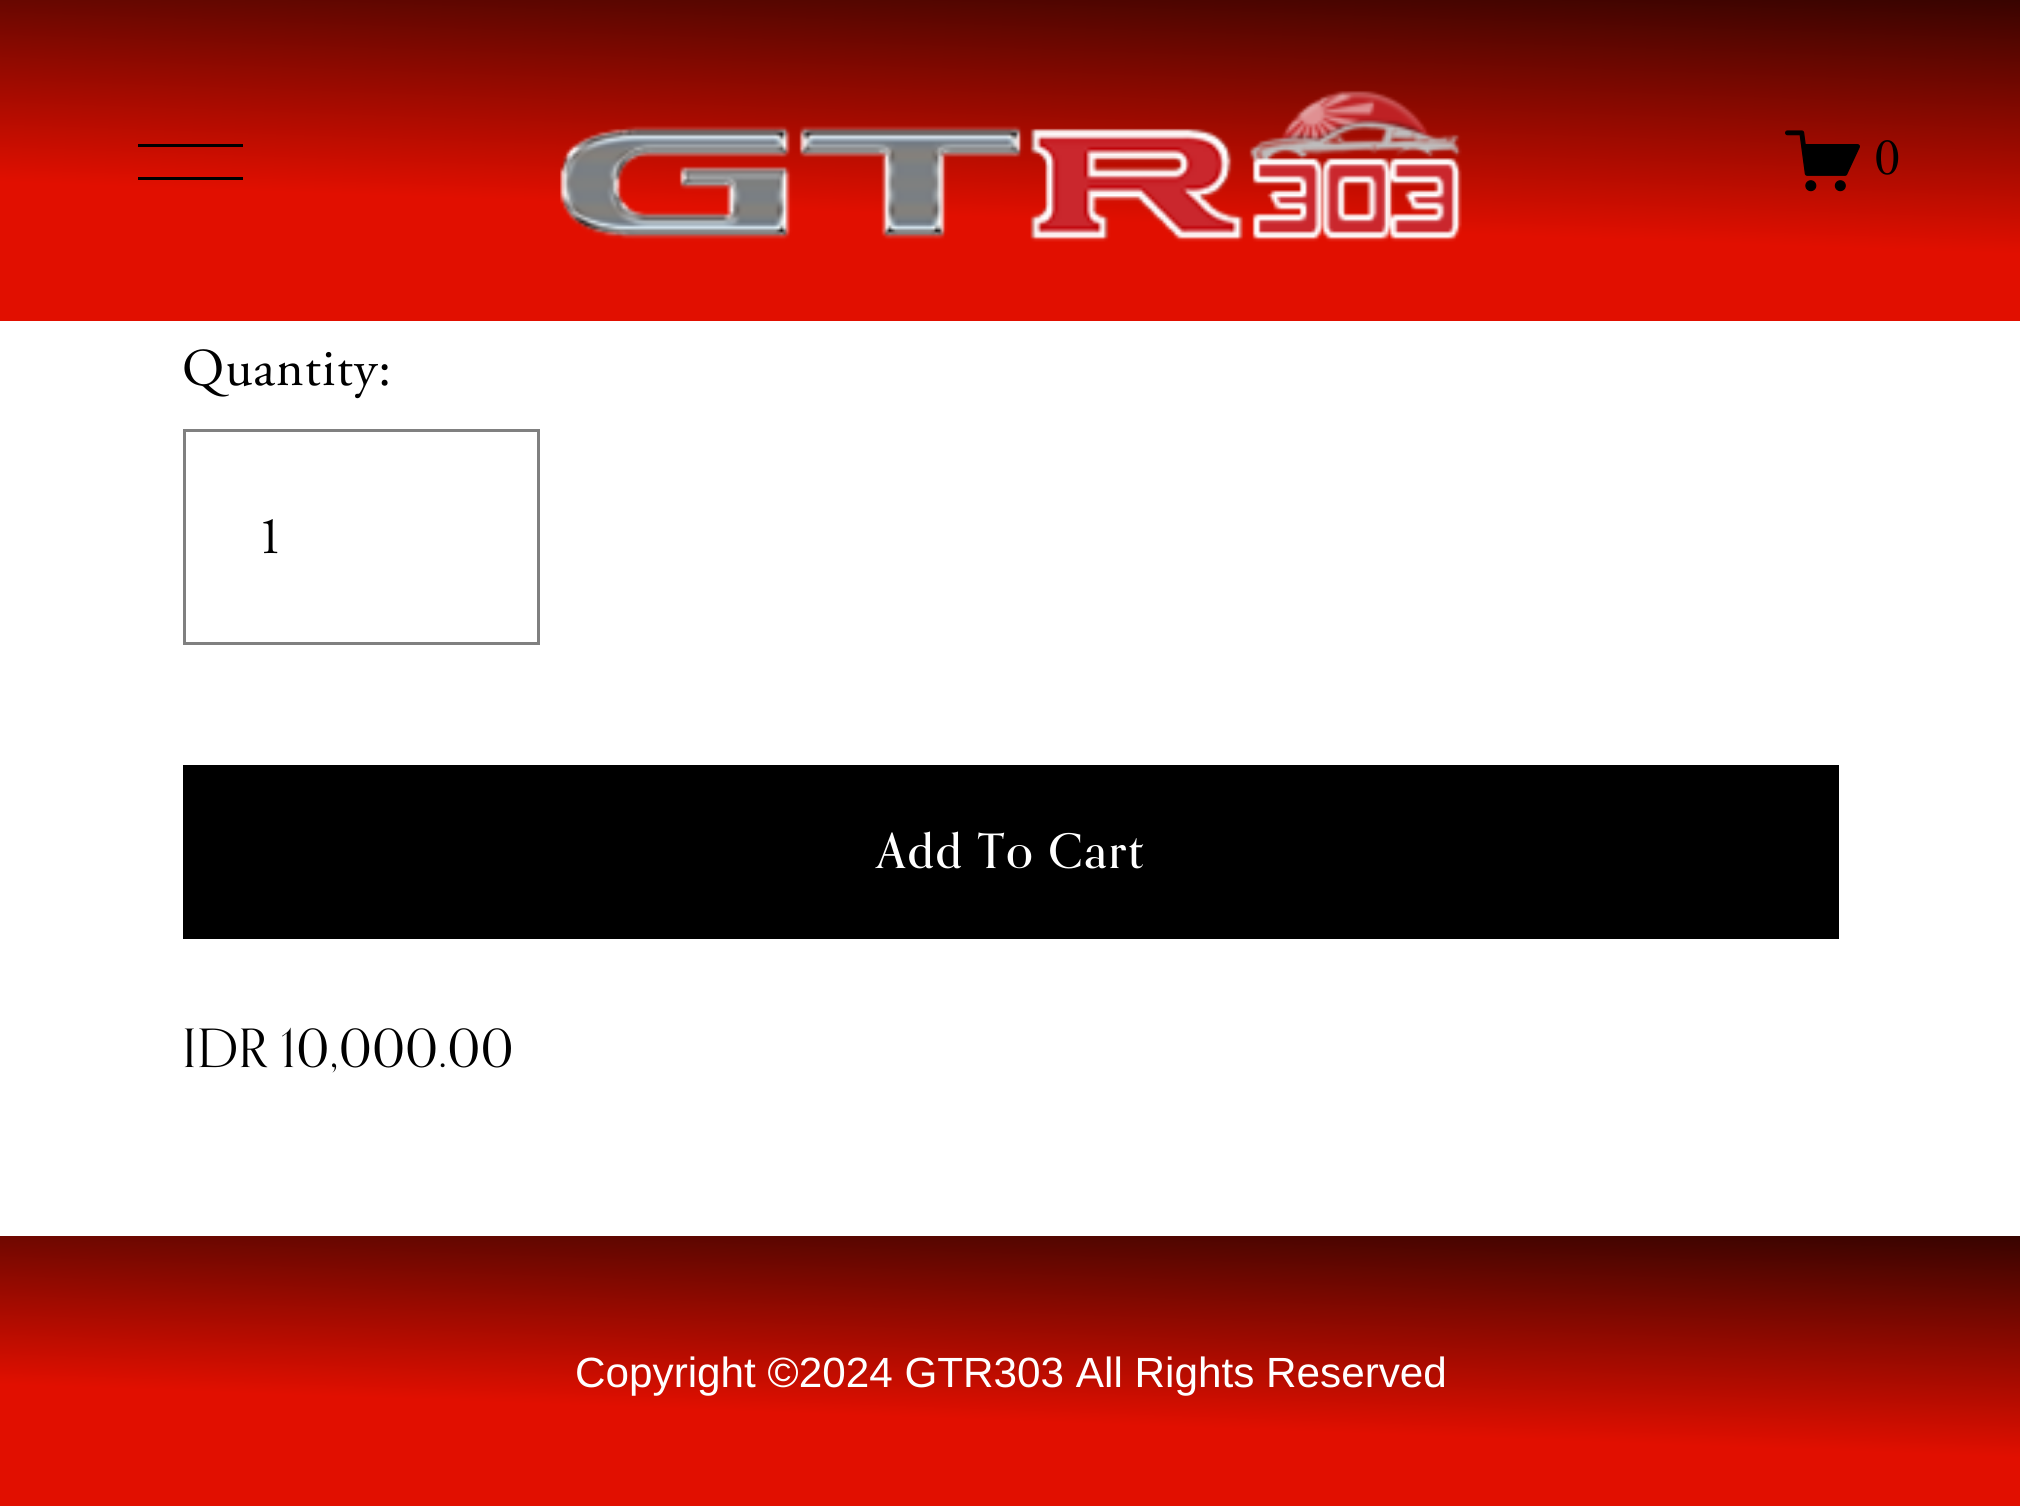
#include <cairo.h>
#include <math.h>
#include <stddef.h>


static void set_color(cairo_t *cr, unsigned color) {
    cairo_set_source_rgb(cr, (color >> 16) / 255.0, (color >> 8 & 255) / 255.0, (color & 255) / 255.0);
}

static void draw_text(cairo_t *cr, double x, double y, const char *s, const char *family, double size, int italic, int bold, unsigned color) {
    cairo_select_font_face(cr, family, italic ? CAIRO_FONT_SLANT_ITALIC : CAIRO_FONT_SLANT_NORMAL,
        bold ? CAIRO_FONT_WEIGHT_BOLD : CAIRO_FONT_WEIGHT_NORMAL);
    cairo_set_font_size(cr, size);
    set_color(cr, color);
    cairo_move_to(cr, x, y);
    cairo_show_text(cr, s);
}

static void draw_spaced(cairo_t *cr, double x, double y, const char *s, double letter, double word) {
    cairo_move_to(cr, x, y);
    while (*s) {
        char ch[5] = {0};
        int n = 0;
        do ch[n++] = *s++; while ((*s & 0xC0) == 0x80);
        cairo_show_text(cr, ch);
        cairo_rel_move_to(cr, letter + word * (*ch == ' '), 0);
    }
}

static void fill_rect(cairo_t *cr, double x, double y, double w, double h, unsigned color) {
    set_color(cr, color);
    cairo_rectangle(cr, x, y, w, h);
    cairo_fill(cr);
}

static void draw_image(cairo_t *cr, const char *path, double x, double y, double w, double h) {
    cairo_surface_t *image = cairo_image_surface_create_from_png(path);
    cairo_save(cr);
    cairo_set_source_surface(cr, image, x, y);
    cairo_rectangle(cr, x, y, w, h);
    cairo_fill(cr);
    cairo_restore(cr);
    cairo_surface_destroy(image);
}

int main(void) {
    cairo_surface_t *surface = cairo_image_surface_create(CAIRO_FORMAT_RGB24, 2020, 1506);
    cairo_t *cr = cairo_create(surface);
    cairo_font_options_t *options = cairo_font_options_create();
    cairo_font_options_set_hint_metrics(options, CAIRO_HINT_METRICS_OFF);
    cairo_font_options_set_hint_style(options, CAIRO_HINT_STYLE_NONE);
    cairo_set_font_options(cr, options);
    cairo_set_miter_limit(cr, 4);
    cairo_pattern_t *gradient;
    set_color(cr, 0xFFFFFF);
    cairo_paint(cr);
    gradient = cairo_pattern_create_linear(1004, 356, 1021, -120);
    cairo_pattern_add_color_stop_rgba(gradient, 0.29, 0.882, 0.059, 0, 1);
    cairo_pattern_add_color_stop_rgba(gradient, 1, 0, 0, 0, 1);
    cairo_set_source(cr, gradient);
    cairo_pattern_destroy(gradient);
    cairo_rectangle(cr, 0, 0, 2020, 321);
    cairo_fill(cr);
    fill_rect(cr, 138, 144, 105, 3, 0x000000);
    fill_rect(cr, 138, 177, 105, 3, 0x000000);
    draw_image(cr, "assets/img1.png", 560, 90, 902, 152);
    draw_image(cr, "assets/img2.png", 1785, 130, 75, 62);
    draw_text(cr, 1874, 174, "0", "Adobe Garamond", 53, 0, 0, 0x000000);
    draw_spaced(cr, 182, 385, "Quantity:", 1, 0);
    cairo_rectangle(cr, 184.5, 430.5, 354, 213);
    set_color(cr, 0x808080);
    cairo_set_line_width(cr, 3);
    cairo_stroke(cr);
    draw_text(cr, 257, 553, "1", "Adobe Garamond", 53, 0, 0, 0x000000);
    fill_rect(cr, 183, 765, 1656, 174, 0x000000);
    cairo_select_font_face(cr, "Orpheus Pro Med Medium", CAIRO_FONT_SLANT_NORMAL, CAIRO_FONT_WEIGHT_NORMAL);
    cairo_set_font_size(cr, 48);
    set_color(cr, 0xFFFFFF);
    draw_spaced(cr, 877, 868, "Add To Cart", 2, 0);
    draw_text(cr, 182, 1067, "IDR 10,000.00", "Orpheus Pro", 53, 0, 0, 0x000000);
    gradient = cairo_pattern_create_linear(1005, 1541, 1020, 1127);
    cairo_pattern_add_color_stop_rgba(gradient, 0.29, 0.882, 0.059, 0, 1);
    cairo_pattern_add_color_stop_rgba(gradient, 1, 0, 0, 0, 1);
    cairo_set_source(cr, gradient);
    cairo_pattern_destroy(gradient);
    cairo_rectangle(cr, 0, 1236, 2020, 270);
    cairo_fill(cr);
    draw_text(cr, 575, 1387, "Copyright ©2024 GTR303 All Rights Reserved", "Liberation Sans", 42.25, 0, 0, 0xFFFFFF);
    cairo_surface_write_to_png(surface, "output.png");
    cairo_font_options_destroy(options);
    cairo_destroy(cr);
    cairo_surface_destroy(surface);
    return 0;
}
